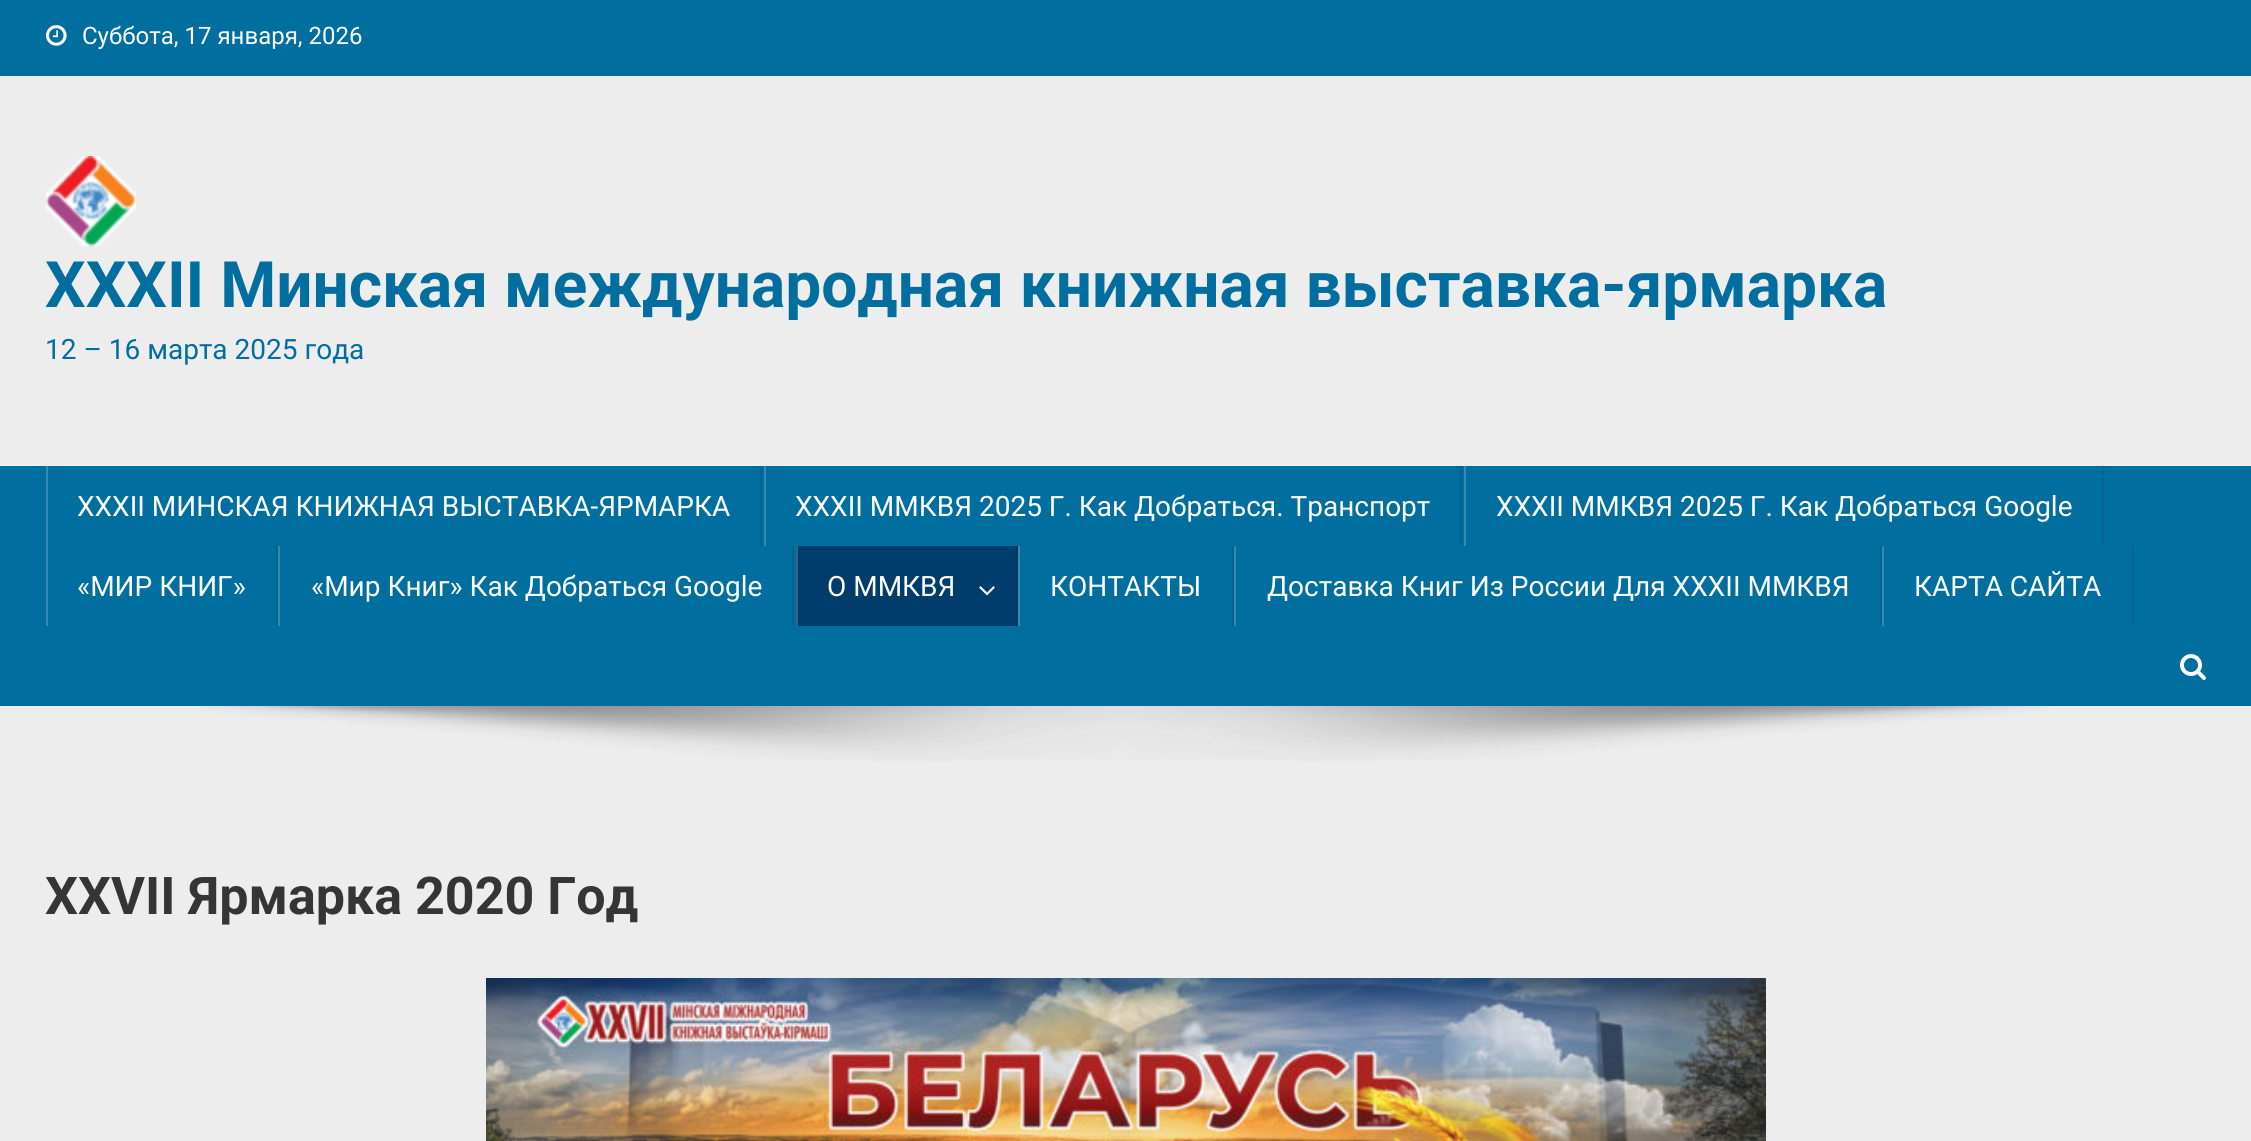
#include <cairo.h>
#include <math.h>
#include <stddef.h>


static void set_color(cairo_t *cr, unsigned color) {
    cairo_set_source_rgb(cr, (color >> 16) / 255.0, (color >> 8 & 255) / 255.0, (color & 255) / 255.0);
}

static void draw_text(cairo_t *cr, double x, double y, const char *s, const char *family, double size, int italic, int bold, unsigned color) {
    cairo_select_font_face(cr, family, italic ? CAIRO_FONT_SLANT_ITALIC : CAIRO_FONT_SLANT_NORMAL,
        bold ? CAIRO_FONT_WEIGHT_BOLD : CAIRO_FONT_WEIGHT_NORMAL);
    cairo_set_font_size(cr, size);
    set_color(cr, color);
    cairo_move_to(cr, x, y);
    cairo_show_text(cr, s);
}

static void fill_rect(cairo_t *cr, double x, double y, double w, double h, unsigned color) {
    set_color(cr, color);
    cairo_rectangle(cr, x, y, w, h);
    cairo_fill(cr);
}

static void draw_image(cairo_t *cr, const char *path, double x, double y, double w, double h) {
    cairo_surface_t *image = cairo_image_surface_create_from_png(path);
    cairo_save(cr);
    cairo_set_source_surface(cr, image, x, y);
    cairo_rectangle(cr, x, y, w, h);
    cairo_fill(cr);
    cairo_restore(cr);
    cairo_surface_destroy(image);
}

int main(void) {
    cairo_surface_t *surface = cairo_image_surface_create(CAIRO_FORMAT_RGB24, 2251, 1141);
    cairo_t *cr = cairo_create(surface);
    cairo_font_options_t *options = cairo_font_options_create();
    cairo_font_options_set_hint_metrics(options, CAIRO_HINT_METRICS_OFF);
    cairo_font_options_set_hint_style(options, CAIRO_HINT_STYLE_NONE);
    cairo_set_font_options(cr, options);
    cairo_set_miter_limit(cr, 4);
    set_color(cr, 0xEDEDED);
    cairo_paint(cr);
    fill_rect(cr, 0, 0, 2251, 76, 0x006E9E);
    draw_image(cr, "assets/img1.png", 46, 25, 21, 21);
    draw_text(cr, 82, 44, "Суббота, 17 января, 2026", "Roboto", 24, 0, 0, 0xFFFFFF);
    draw_image(cr, "assets/img2.png", 46, 156, 90, 90);
    draw_text(cr, 45, 307, "XXХII Минская международная книжная выставка-ярмарка", "Roboto", 64, 0, 1, 0x006E9E);
    draw_text(cr, 45, 359, "12 – 16 марта 2025 года", "Roboto", 28, 0, 0, 0x006E9E);
    fill_rect(cr, 0, 466, 2251, 240, 0x006E9E);
    fill_rect(cr, 760, 466, 2, 80, 0x006591);
    fill_rect(cr, 46, 466, 2, 160, 0x338BB1);
    draw_text(cr, 77, 516, "XXXII МИНСКАЯ КНИЖНАЯ ВЫСТАВКА-ЯРМАРКА", "Roboto", 28, 0, 0, 0xFFFFFF);
    fill_rect(cr, 1460, 466, 2, 80, 0x006591);
    fill_rect(cr, 764, 466, 2, 80, 0x338BB1);
    draw_text(cr, 795, 516, "XXXII ММКВЯ 2025 Г. Как Добраться. Транспорт", "Roboto", 28, 0, 0, 0xFFFFFF);
    fill_rect(cr, 2102, 466, 2, 80, 0x006591);
    fill_rect(cr, 1464, 466, 2, 80, 0x338BB1);
    draw_text(cr, 1496, 516, "XXXII ММКВЯ 2025 Г. Как Добраться Google", "Roboto", 28, 0, 0, 0xFFFFFF);
    fill_rect(cr, 276, 546, 2, 80, 0x006591);
    draw_text(cr, 77, 596, "«МИР КНИГ»", "Roboto", 28, 0, 0, 0xFFFFFF);
    fill_rect(cr, 792, 546, 2, 80, 0x006591);
    fill_rect(cr, 278, 546, 2, 80, 0x338BB1);
    draw_text(cr, 311, 596, "«Мир Книг» Как Добраться Google", "Roboto", 28, 0, 0, 0xFFFFFF);
    fill_rect(cr, 798, 546, 218, 80, 0x003C6C);
    fill_rect(cr, 1016, 546, 2, 80, 0x003763);
    fill_rect(cr, 796, 546, 2, 80, 0x336389);
    draw_text(cr, 827, 596, "О ММКВЯ", "Roboto", 28, 0, 0, 0xFFFFFF);
    draw_image(cr, "assets/img3.png", 979, 586, 16, 10);
    fill_rect(cr, 1232, 546, 2, 80, 0x006591);
    fill_rect(cr, 1018, 546, 2, 80, 0x338BB1);
    draw_text(cr, 1050, 596, "КОНТАКТЫ", "Roboto", 28, 0, 0, 0xFFFFFF);
    fill_rect(cr, 1880, 546, 2, 80, 0x006591);
    fill_rect(cr, 1234, 546, 2, 80, 0x338BB1);
    draw_text(cr, 1267, 596, "Доставка Книг Из России Для XXXII ММКВЯ", "Roboto", 28, 0, 0, 0xFFFFFF);
    fill_rect(cr, 2132, 546, 2, 80, 0x006591);
    fill_rect(cr, 1882, 546, 2, 80, 0x338BB1);
    draw_text(cr, 1914, 596, "КАРТА САЙТА", "Roboto", 28, 0, 0, 0xFFFFFF);
    draw_image(cr, "assets/img4.png", 2180, 654, 26, 26);
    draw_image(cr, "assets/img5.png", 200, 706, 1849, 55);
    draw_text(cr, 45, 914, "XXVII Ярмарка 2020 Год", "Roboto", 52, 0, 1, 0x353535);
    draw_image(cr, "assets/img6.png", 486, 978, 1280, 163);
    cairo_surface_write_to_png(surface, "output.png");
    cairo_font_options_destroy(options);
    cairo_destroy(cr);
    cairo_surface_destroy(surface);
    return 0;
}
